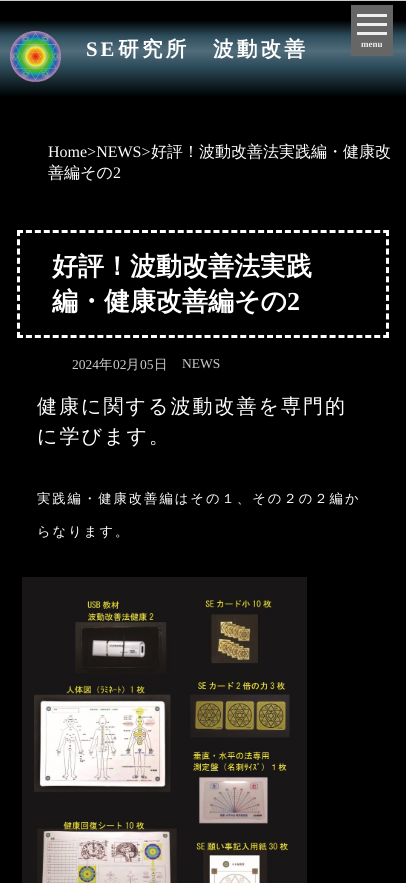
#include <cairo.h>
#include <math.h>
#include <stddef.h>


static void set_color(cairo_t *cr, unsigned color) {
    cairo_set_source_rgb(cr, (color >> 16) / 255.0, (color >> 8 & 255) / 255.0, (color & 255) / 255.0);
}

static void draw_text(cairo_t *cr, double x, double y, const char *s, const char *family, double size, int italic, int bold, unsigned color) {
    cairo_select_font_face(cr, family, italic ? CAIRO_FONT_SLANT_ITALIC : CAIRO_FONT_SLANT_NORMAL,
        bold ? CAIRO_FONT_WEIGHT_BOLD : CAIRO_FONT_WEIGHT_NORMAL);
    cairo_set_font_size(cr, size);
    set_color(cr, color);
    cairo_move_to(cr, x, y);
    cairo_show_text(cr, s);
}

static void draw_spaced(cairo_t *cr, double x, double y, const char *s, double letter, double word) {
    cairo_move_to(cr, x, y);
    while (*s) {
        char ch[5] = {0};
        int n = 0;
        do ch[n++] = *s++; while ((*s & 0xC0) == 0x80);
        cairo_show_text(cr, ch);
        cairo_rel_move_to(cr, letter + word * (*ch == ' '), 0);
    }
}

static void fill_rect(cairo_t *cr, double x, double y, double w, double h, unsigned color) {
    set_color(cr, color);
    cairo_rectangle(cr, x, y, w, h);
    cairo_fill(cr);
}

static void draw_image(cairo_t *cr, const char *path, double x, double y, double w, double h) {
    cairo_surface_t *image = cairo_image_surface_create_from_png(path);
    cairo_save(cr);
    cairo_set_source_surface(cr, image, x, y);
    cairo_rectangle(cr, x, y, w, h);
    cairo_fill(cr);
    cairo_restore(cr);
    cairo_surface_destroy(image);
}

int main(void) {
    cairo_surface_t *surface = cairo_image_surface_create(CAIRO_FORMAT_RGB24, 406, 883);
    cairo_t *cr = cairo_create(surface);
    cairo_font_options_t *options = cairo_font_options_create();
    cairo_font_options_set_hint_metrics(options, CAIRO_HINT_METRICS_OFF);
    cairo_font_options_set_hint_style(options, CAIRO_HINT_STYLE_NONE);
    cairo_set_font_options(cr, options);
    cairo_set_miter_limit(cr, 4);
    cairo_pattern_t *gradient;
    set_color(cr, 0x000000);
    cairo_paint(cr);
    gradient = cairo_pattern_create_linear(203, 21, 203, 96);
    cairo_pattern_add_color_stop_rgba(gradient, 0, 0, 0.012, 0.016, 1);
    cairo_pattern_add_color_stop_rgba(gradient, 0.2, 0.18, 0.302, 0.361, 1);
    cairo_pattern_add_color_stop_rgba(gradient, 0.4, 0.318, 0.424, 0.482, 1);
    cairo_pattern_add_color_stop_rgba(gradient, 0.6, 0.18, 0.302, 0.361, 1);
    cairo_pattern_add_color_stop_rgba(gradient, 1, 0, 0.012, 0.016, 1);
    cairo_set_source(cr, gradient);
    cairo_pattern_destroy(gradient);
    cairo_rectangle(cr, 0, 21, 406, 75);
    cairo_fill(cr);
    draw_image(cr, "assets/img1.png", 10, 31, 51, 51);
    cairo_select_font_face(cr, "Liberation Serif", CAIRO_FONT_SLANT_NORMAL, CAIRO_FONT_WEIGHT_BOLD);
    cairo_set_font_size(cr, 20.75);
    set_color(cr, 0xFFFFFF);
    draw_spaced(cr, 86, 56, "SE", 3, 0);
    cairo_select_font_face(cr, "WenQuanYi Zen Hei", CAIRO_FONT_SLANT_NORMAL, CAIRO_FONT_WEIGHT_BOLD);
    draw_spaced(cr, 118, 56, "研究所　波動改善", 3, 0);
    fill_rect(cr, 0, 0, 406, 1, 0xCCCCCC);
    fill_rect(cr, 351, 5, 42, 51, 0x666666);
    fill_rect(cr, 357, 14, 30, 3, 0xEEEEEE);
    fill_rect(cr, 357, 23, 30, 3, 0xEEEEEE);
    fill_rect(cr, 357, 32, 30, 3, 0xEEEEEE);
    draw_text(cr, 361, 47, "menu", "Liberation Serif", 9, 0, 1, 0xEEEEEE);
    draw_text(cr, 48, 157, "Home>NEWS>", "Liberation Serif", 16, 0, 0, 0xFFFFFF);
    draw_text(cr, 151, 157, "好評！波動改善法実践編・健康改", "WenQuanYi Zen Hei Medium", 16, 0, 0, 0xFFFFFF);
    draw_text(cr, 48, 178, "善編その", "WenQuanYi Zen Hei Medium", 16, 0, 0, 0xFFFFFF);
    draw_text(cr, 113, 178, "2", "Liberation Serif", 16, 0, 0, 0xFFFFFF);
    cairo_new_path(cr);
    cairo_move_to(cr, 17, 231.5);
    cairo_line_to(cr, 389, 231.5);
    cairo_set_line_width(cr, 3);
    cairo_set_dash(cr, (double[]){6, 2.93}, 2, 0);
    cairo_stroke(cr);
    cairo_new_path(cr);
    cairo_move_to(cr, 387.5, 230);
    cairo_line_to(cr, 387.5, 338);
    cairo_set_dash(cr, (double[]){6, 3.27}, 2, 0);
    cairo_stroke(cr);
    cairo_new_path(cr);
    cairo_move_to(cr, 17, 336.5);
    cairo_line_to(cr, 389, 336.5);
    cairo_set_dash(cr, (double[]){6, 2.93}, 2, 0);
    cairo_stroke(cr);
    cairo_new_path(cr);
    cairo_move_to(cr, 18.5, 230);
    cairo_line_to(cr, 18.5, 338);
    cairo_set_dash(cr, (double[]){6, 3.27}, 2, 0);
    cairo_stroke(cr);
    draw_text(cr, 52, 275, "好評！波動改善法実践", "WenQuanYi Zen Hei", 26, 0, 1, 0xFFFFFF);
    draw_text(cr, 52, 310, "編・健康改善編その", "WenQuanYi Zen Hei", 26, 0, 1, 0xFFFFFF);
    draw_text(cr, 287, 310, "2", "Liberation Serif", 26, 0, 1, 0xFFFFFF);
    draw_text(cr, 72, 369, "2024", "Liberation Serif", 13.5, 0, 0, 0xCCCCCC);
    draw_text(cr, 99, 369, "年", "WenQuanYi Zen Hei Medium", 13.5, 0, 0, 0xCCCCCC);
    draw_text(cr, 113, 369, "02", "Liberation Serif", 13.5, 0, 0, 0xCCCCCC);
    draw_text(cr, 126, 369, "月", "WenQuanYi Zen Hei Medium", 13.5, 0, 0, 0xCCCCCC);
    draw_text(cr, 140, 369, "05", "Liberation Serif", 13.5, 0, 0, 0xCCCCCC);
    draw_text(cr, 154, 369, "日", "WenQuanYi Zen Hei Medium", 13.5, 0, 0, 0xCCCCCC);
    draw_text(cr, 182, 368, "NEWS", "Liberation Serif", 13.5, 0, 0, 0xCCCCCC);
    cairo_select_font_face(cr, "WenQuanYi Zen Hei Medium", CAIRO_FONT_SLANT_NORMAL, CAIRO_FONT_WEIGHT_NORMAL);
    cairo_set_font_size(cr, 20);
    set_color(cr, 0xFFFFFF);
    draw_spaced(cr, 37, 413, "健康に関する波動改善を専門的", 2, 0);
    draw_spaced(cr, 37, 443, "に学びます。", 2, 0);
    cairo_set_font_size(cr, 13.3);
    draw_spaced(cr, 37, 503, "実践編・健康改善編はその１、その２の２編か", 2, 0);
    draw_spaced(cr, 37, 536, "らなります。", 2, 0);
    draw_image(cr, "assets/img2.png", 22, 577, 285, 306);
    cairo_surface_write_to_png(surface, "output.png");
    cairo_font_options_destroy(options);
    cairo_destroy(cr);
    cairo_surface_destroy(surface);
    return 0;
}
